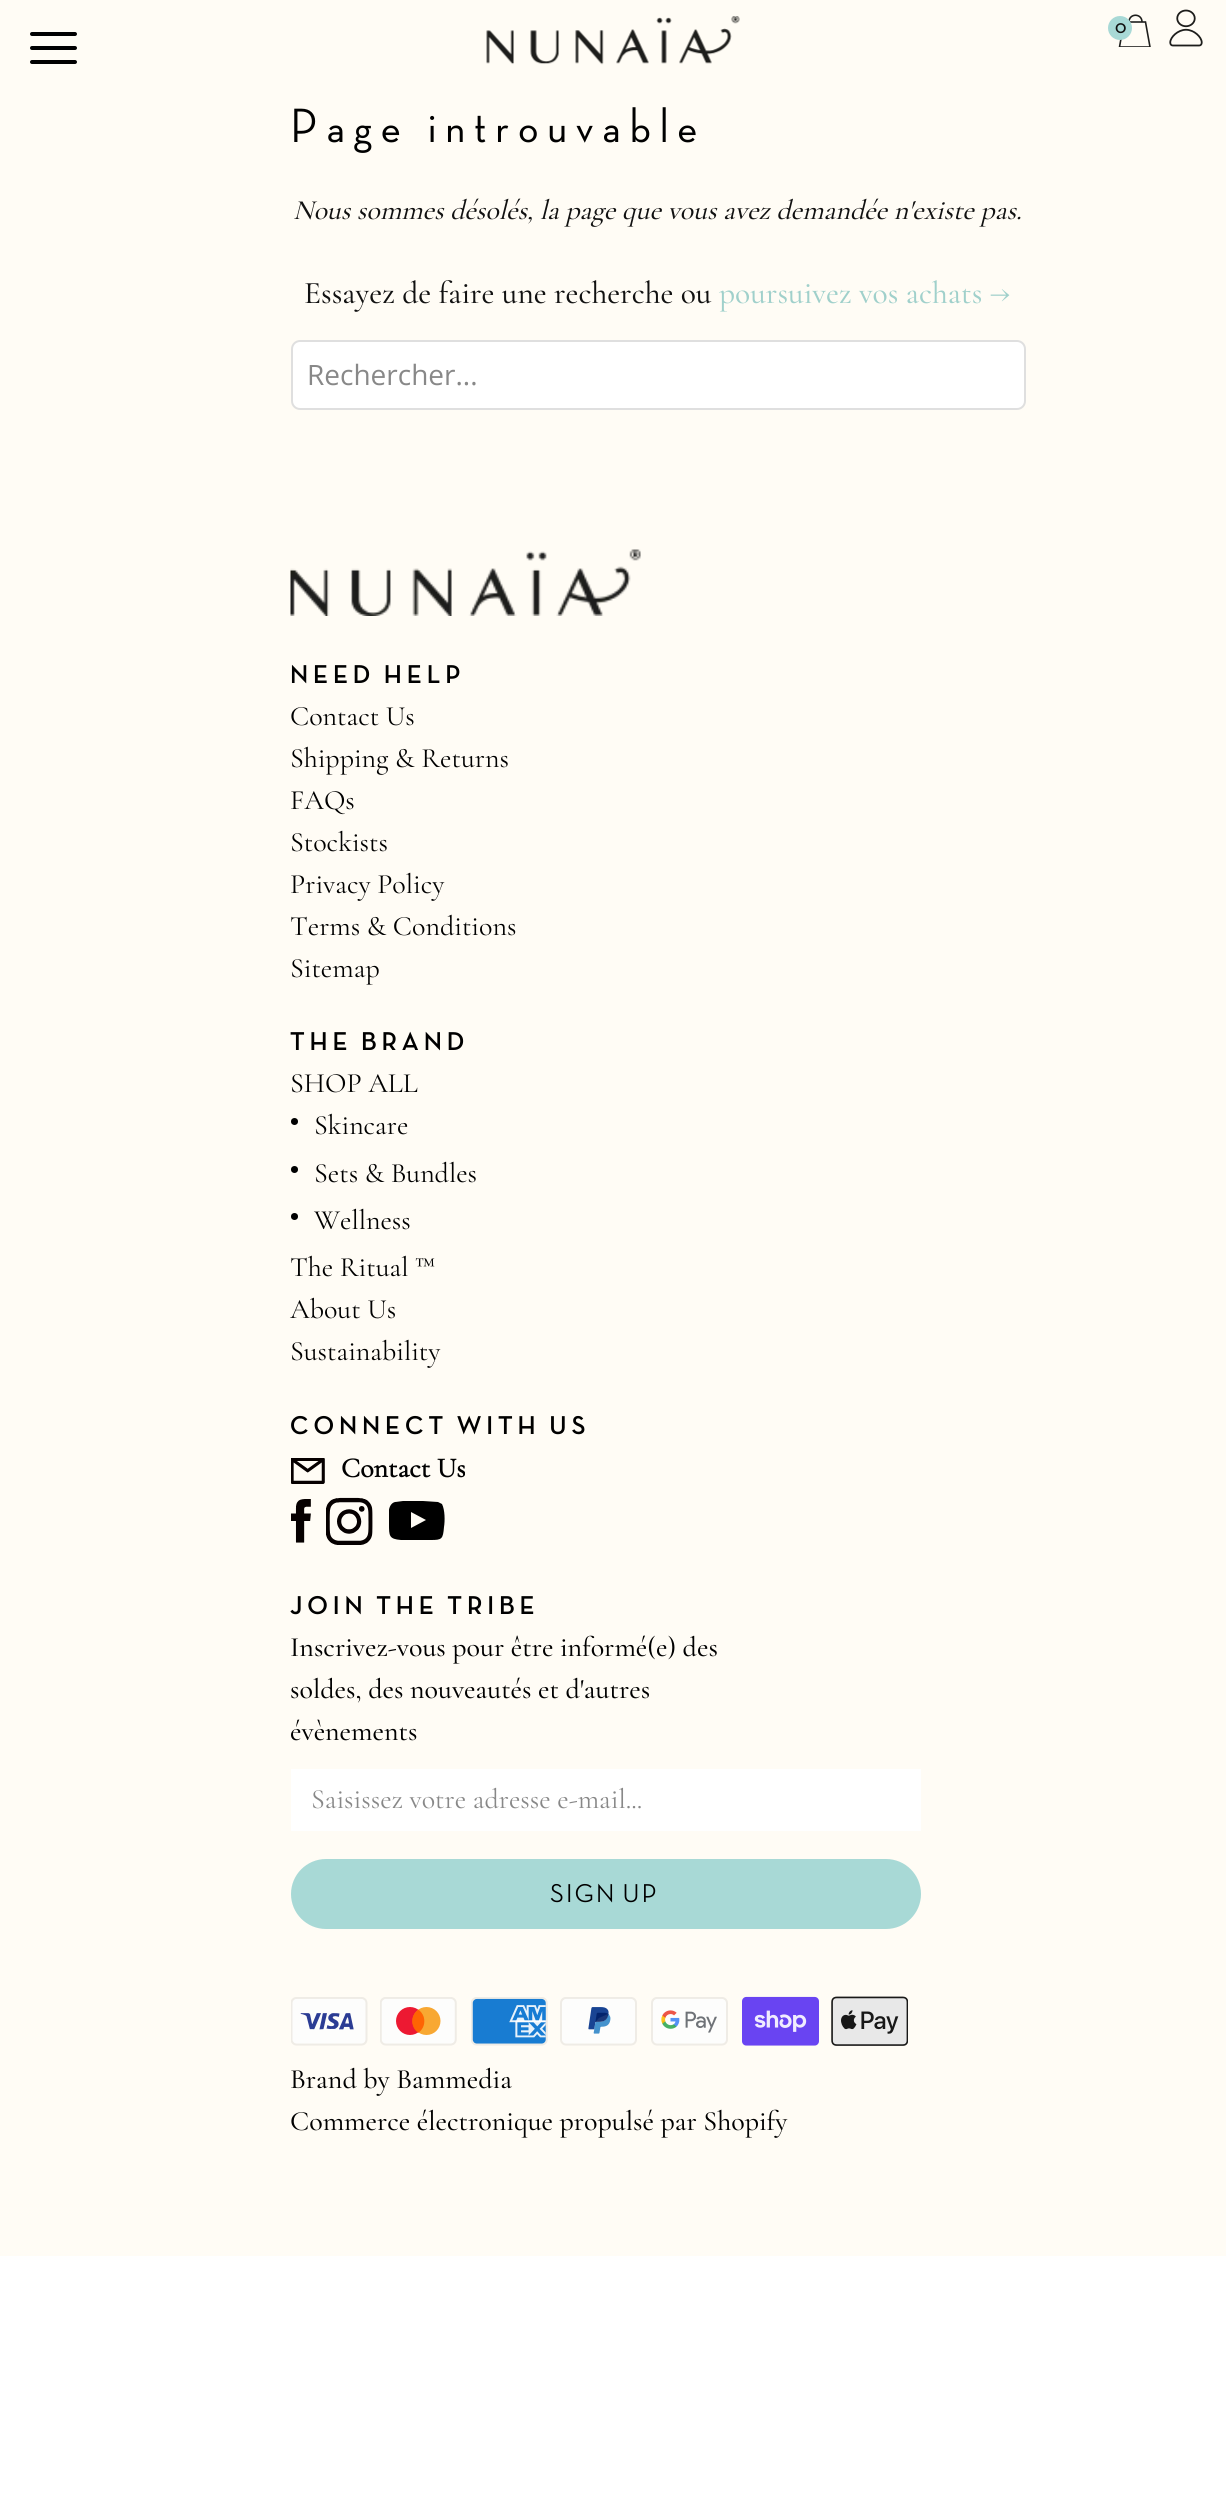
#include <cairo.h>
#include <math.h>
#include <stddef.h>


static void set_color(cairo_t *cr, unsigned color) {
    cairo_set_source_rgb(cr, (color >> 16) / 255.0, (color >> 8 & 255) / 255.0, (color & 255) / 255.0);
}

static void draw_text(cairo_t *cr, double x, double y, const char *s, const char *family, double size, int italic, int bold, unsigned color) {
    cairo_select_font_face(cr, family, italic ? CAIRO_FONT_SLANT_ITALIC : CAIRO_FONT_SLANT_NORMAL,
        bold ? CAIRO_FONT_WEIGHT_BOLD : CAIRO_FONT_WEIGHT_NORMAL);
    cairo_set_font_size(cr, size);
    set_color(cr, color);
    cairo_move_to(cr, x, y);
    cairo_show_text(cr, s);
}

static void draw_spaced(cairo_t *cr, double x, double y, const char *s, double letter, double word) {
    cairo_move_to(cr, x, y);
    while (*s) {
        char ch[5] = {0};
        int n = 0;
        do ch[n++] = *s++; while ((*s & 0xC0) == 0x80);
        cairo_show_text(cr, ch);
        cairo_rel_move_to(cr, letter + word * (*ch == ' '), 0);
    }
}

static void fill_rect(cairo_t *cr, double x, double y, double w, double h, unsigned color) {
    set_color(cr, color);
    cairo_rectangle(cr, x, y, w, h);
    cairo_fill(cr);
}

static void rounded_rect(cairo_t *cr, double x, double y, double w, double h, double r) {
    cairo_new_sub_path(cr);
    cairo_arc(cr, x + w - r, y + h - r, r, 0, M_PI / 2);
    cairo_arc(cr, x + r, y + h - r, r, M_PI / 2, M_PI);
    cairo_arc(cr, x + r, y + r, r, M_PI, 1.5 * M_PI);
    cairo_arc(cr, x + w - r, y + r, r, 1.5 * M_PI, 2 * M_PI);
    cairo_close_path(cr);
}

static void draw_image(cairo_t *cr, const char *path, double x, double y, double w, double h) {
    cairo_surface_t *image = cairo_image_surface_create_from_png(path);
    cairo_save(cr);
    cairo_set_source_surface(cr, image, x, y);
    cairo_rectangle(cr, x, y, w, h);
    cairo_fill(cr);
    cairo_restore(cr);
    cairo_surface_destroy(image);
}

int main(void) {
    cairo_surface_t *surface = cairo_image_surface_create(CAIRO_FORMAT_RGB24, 1226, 2509);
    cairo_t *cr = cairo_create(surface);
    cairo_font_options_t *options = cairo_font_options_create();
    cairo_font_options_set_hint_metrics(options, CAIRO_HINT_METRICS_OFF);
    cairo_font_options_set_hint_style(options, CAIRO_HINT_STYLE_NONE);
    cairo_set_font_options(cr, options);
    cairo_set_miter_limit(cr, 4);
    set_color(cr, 0xFFFFFF);
    cairo_paint(cr);
    fill_rect(cr, 0, 0, 1226, 2256, 0xFFFCF5);
    draw_image(cr, "assets/img1.png", 486, 16, 254, 49);
    cairo_save(cr);
    cairo_rectangle(cr, 1110, 5, 42, 42);
    cairo_clip(cr);
    cairo_new_path(cr);
    cairo_move_to(cr, 1150, 47);
    cairo_line_to(cr, 1119.5, 47);
    cairo_line_to(cr, 1124, 22);
    cairo_line_to(cr, 1145.5, 22);
    cairo_close_path(cr);
    set_color(cr, 0x1D1D1B);
    cairo_set_line_width(cr, 1.6);
    cairo_stroke(cr);
    cairo_restore(cr);
    cairo_new_path(cr);
    cairo_move_to(cr, 1129, 22);
    cairo_curve_to(cr, 1129, 13, 1142, 13, 1142, 22);
    set_color(cr, 0x1D1D1B);
    cairo_set_line_width(cr, 1.6);
    cairo_stroke(cr);
    set_color(cr, 0xA8D9D6);
    cairo_arc(cr, 1120, 28, 12, 0, 2 * M_PI);
    cairo_fill(cr);
    draw_text(cr, 1115, 33, "0", "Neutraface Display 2", 18, 0, 1, 0x111111);
    draw_image(cr, "assets/img2.png", 1169, 9, 34, 38);
    set_color(cr, 0x000000);
    rounded_rect(cr, 30, 32, 47, 4, 2);
    cairo_fill(cr);
    rounded_rect(cr, 30, 46, 47, 4, 2);
    cairo_fill(cr);
    rounded_rect(cr, 30, 60, 47, 4, 2);
    cairo_fill(cr);
    cairo_select_font_face(cr, "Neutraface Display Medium", CAIRO_FONT_SLANT_NORMAL, CAIRO_FONT_WEIGHT_NORMAL);
    cairo_set_font_size(cr, 49);
    draw_spaced(cr, 290, 142, "Page introuvable", 9.25, 0);
    draw_text(cr, 293, 219, "Nous sommes désolés, la page que vous avez demandée n'existe pas.", "Cormorant Garamond Medium", 28, 1, 0, 0x111111);
    draw_text(cr, 304, 303, "Essayez de faire une recherche ou", "Cormorant Garamond Medium", 31.5, 0, 0, 0x111111);
    draw_text(cr, 719, 303, "poursuivez vos achats →", "Cormorant Garamond Medium", 31.5, 0, 0, 0xA0D0CB);
    set_color(cr, 0xFFFFFF);
    rounded_rect(cr, 292, 341, 733, 68, 8);
    cairo_fill_preserve(cr);
    set_color(cr, 0xDFDFDF);
    cairo_set_line_width(cr, 2);
    cairo_stroke(cr);
    draw_text(cr, 307, 385, "Rechercher...", "Open Sans", 28, 0, 0, 0x888888);
    draw_image(cr, "assets/img3.png", 290, 549, 351, 67);
    cairo_select_font_face(cr, "Neutraface Display", CAIRO_FONT_SLANT_NORMAL, CAIRO_FONT_WEIGHT_BOLD);
    cairo_set_font_size(cr, 26.25);
    set_color(cr, 0x000000);
    draw_spaced(cr, 290, 683, "NEED HELP", 4.9, -1);
    draw_text(cr, 290, 725, "Contact Us", "Cormorant Garamond", 28, 0, 0, 0x000000);
    draw_text(cr, 290, 767, "Shipping & Returns", "Cormorant Garamond", 28, 0, 0, 0x000000);
    draw_text(cr, 290, 809, "FAQs", "Cormorant Garamond", 28, 0, 0, 0x000000);
    draw_text(cr, 290, 851, "Stockists", "Cormorant Garamond", 28, 0, 0, 0x000000);
    draw_text(cr, 290, 893, "Privacy Policy", "Cormorant Garamond", 28, 0, 0, 0x000000);
    draw_text(cr, 290, 935, "Terms & Conditions", "Cormorant Garamond", 28, 0, 0, 0x000000);
    draw_text(cr, 290, 977, "Sitemap", "Cormorant Garamond", 28, 0, 0, 0x000000);
    cairo_select_font_face(cr, "Neutraface Display", CAIRO_FONT_SLANT_NORMAL, CAIRO_FONT_WEIGHT_BOLD);
    cairo_set_font_size(cr, 26.25);
    draw_spaced(cr, 290, 1050, "THE BRAND", 4.9, -1);
    draw_text(cr, 290, 1092, "SHOP ALL", "Cormorant Garamond", 28, 0, 0, 0x000000);
    cairo_new_path(cr);
    cairo_arc(cr, 294.5, 1121.5, 3.5, 0, 2 * M_PI);
    cairo_fill(cr);
    draw_text(cr, 314, 1134, "Skincare", "Cormorant Garamond", 28, 0, 0, 0x000000);
    cairo_new_path(cr);
    cairo_arc(cr, 294.5, 1169.5, 3.5, 0, 2 * M_PI);
    cairo_fill(cr);
    draw_text(cr, 314, 1182, "Sets & Bundles", "Cormorant Garamond", 28, 0, 0, 0x000000);
    cairo_new_path(cr);
    cairo_arc(cr, 294.5, 1216.5, 3.5, 0, 2 * M_PI);
    cairo_fill(cr);
    draw_text(cr, 314, 1229, "Wellness", "Cormorant Garamond", 28, 0, 0, 0x000000);
    draw_text(cr, 290, 1276, "The Ritual ™", "Cormorant Garamond", 28, 0, 0, 0x000000);
    draw_text(cr, 290, 1318, "About Us", "Cormorant Garamond", 28, 0, 0, 0x000000);
    draw_text(cr, 290, 1360, "Sustainability", "Cormorant Garamond", 28, 0, 0, 0x000000);
    cairo_select_font_face(cr, "Neutraface Display", CAIRO_FONT_SLANT_NORMAL, CAIRO_FONT_WEIGHT_BOLD);
    cairo_set_font_size(cr, 26.25);
    draw_spaced(cr, 290, 1434, "CONNECT WITH US", 4.9, -1);
    draw_image(cr, "assets/img4.png", 291, 1458, 34, 26);
    draw_text(cr, 341, 1477, "Contact Us", "Cormorant Garamond", 28, 0, 1, 0x000000);
    draw_image(cr, "assets/img5.png", 291, 1499, 20, 44);
    draw_image(cr, "assets/img6.png", 326, 1497, 47, 48);
    cairo_save(cr);
    cairo_rectangle(cr, 389, 1493, 56, 56);
    cairo_clip(cr);
    cairo_set_fill_rule(cr, CAIRO_FILL_RULE_EVEN_ODD);
    cairo_new_path(cr);
    cairo_move_to(cr, 411, 1528);
    cairo_line_to(cr, 411, 1512);
    cairo_line_to(cr, 426, 1520);
    cairo_line_to(cr, 411, 1528);
    cairo_move_to(cr, 442, 1504);
    cairo_line_to(cr, 438, 1502);
    cairo_line_to(cr, 423, 1501);
    cairo_line_to(cr, 403, 1501);
    cairo_line_to(cr, 395, 1502);
    cairo_curve_to(cr, 387, 1504, 388, 1518, 389, 1524);
    cairo_curve_to(cr, 389, 1536, 389, 1539, 401, 1540);
    cairo_line_to(cr, 431, 1540);
    cairo_curve_to(cr, 442, 1540, 443, 1539, 444, 1527);
    cairo_curve_to(cr, 445, 1521, 445, 1510, 442, 1504);
    cairo_fill(cr);
    cairo_restore(cr);
    cairo_select_font_face(cr, "Neutraface Display", CAIRO_FONT_SLANT_NORMAL, CAIRO_FONT_WEIGHT_BOLD);
    cairo_set_font_size(cr, 26.25);
    draw_spaced(cr, 290, 1614, "JOIN THE TRIBE", 4.9, -1);
    draw_text(cr, 290, 1656, "Inscrivez-vous pour être informé(e) des", "Cormorant Garamond Medium", 28, 0, 0, 0x000000);
    draw_text(cr, 290, 1698, "soldes, des nouveautés et d'autres", "Cormorant Garamond Medium", 28, 0, 0, 0x000000);
    draw_text(cr, 290, 1740, "évènements", "Cormorant Garamond Medium", 28, 0, 0, 0x000000);
    fill_rect(cr, 291, 1769, 630, 62, 0xFFFFFF);
    draw_text(cr, 311, 1808, "Saisissez votre adresse e-mail...", "Cormorant Garamond", 28, 0, 0, 0x888888);
    set_color(cr, 0xA8D9D6);
    rounded_rect(cr, 292, 1860, 628, 68, 34);
    cairo_fill_preserve(cr);
    cairo_stroke(cr);
    cairo_select_font_face(cr, "Neutraface Display Medium", CAIRO_FONT_SLANT_NORMAL, CAIRO_FONT_WEIGHT_NORMAL);
    cairo_set_font_size(cr, 26.25);
    set_color(cr, 0x000000);
    draw_spaced(cr, 550, 1902, "SIGN UP", 2.25, -1);
    draw_image(cr, "assets/img7.png", 291, 1997, 77, 49);
    draw_image(cr, "assets/img8.png", 380, 1997, 77, 49);
    draw_image(cr, "assets/img9.png", 471, 1997, 77, 49);
    draw_image(cr, "assets/img10.png", 560, 1997, 77, 49);
    draw_image(cr, "assets/img11.png", 651, 1997, 77, 49);
    draw_image(cr, "assets/img12.png", 742, 1996, 77, 50);
    draw_image(cr, "assets/img13.png", 831, 1996, 77, 50);
    draw_text(cr, 290, 2088, "Brand by Bammedia", "Cormorant Garamond Medium", 28, 0, 0, 0x000000);
    draw_text(cr, 290, 2130, "Commerce électronique propulsé par Shopify", "Cormorant Garamond Medium", 28, 0, 0, 0x000000);
    cairo_surface_write_to_png(surface, "output.png");
    cairo_font_options_destroy(options);
    cairo_destroy(cr);
    cairo_surface_destroy(surface);
    return 0;
}
